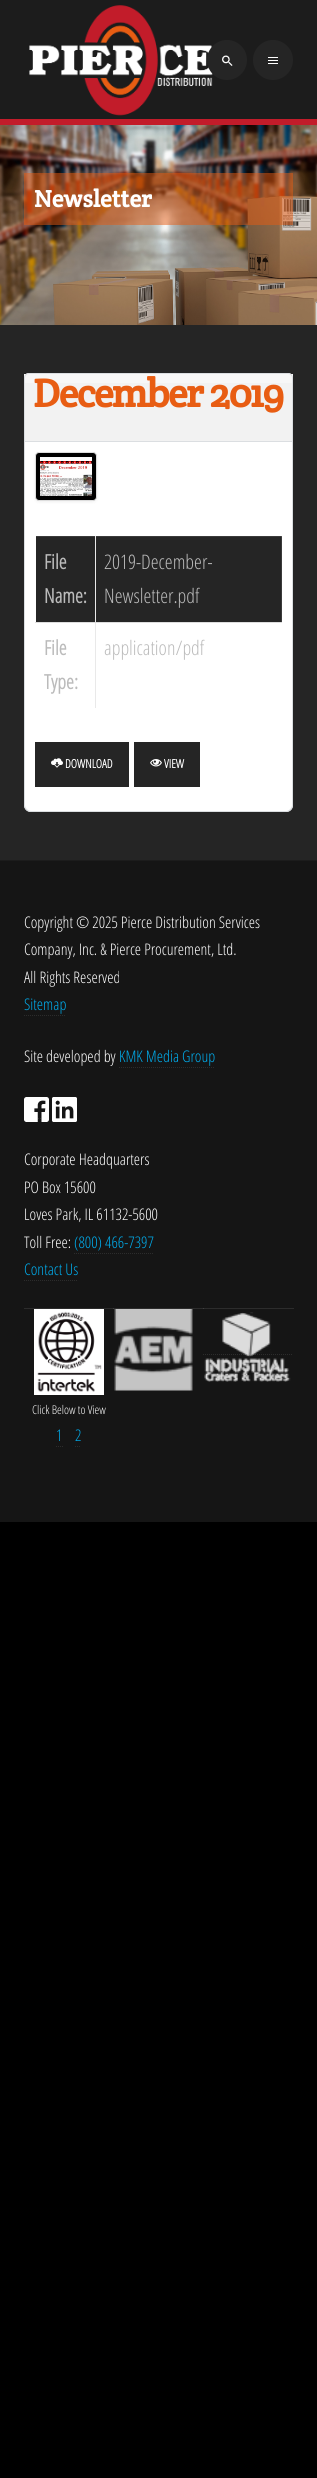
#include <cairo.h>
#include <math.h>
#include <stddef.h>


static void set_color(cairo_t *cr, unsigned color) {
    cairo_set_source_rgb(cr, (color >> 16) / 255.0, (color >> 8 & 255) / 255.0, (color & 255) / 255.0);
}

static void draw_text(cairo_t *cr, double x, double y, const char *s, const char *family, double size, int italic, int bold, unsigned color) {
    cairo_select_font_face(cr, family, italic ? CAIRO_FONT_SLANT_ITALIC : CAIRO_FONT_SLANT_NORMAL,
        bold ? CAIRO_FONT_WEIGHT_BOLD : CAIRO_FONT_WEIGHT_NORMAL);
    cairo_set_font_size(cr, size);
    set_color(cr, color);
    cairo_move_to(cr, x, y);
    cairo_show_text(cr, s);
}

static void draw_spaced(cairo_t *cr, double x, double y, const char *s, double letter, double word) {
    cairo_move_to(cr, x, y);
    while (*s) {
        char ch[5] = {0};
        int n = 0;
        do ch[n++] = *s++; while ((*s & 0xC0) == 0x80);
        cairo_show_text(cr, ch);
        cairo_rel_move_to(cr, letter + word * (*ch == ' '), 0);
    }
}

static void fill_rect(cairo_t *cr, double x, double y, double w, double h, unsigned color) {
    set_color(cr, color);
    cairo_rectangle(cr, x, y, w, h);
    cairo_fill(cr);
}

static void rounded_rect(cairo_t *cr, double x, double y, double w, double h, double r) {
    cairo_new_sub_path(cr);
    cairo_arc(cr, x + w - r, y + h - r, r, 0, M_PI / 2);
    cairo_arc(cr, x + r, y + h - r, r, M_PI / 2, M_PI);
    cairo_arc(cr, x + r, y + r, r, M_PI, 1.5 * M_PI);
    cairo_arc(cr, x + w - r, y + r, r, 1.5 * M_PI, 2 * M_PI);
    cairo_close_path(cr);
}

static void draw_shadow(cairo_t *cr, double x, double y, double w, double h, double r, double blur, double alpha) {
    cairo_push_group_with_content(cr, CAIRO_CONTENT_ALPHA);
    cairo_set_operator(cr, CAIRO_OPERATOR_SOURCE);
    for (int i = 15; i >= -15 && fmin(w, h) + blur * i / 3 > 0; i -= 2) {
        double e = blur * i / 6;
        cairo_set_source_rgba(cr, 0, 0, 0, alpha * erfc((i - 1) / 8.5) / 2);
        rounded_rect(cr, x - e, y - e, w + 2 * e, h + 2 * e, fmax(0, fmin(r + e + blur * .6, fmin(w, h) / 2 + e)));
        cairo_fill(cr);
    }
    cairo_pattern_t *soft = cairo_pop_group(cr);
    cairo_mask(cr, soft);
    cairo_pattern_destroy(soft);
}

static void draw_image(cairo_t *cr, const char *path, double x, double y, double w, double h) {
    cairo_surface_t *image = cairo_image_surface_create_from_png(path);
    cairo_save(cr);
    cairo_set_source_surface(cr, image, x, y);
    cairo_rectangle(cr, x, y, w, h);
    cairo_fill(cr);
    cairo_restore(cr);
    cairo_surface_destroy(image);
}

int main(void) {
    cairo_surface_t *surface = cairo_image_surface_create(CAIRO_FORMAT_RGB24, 317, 2478);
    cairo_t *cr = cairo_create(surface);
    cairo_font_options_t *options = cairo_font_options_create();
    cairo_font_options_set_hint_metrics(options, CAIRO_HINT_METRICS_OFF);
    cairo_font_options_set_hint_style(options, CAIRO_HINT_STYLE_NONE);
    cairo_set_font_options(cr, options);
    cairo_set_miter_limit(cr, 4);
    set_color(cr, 0x000000);
    cairo_paint(cr);
    fill_rect(cr, 0, 0, 317, 119, 0x1C1C1C);
    fill_rect(cr, 0, 119, 317, 6, 0xC21C2A);
    draw_image(cr, "assets/img1.png", 29, 5, 184, 111);
    set_color(cr, 0x252525);
    cairo_arc(cr, 227, 60, 20, 0, 2 * M_PI);
    cairo_fill(cr);
    draw_image(cr, "assets/img2.png", 222, 55, 11, 11);
    cairo_arc(cr, 273, 60, 20, 0, 2 * M_PI);
    cairo_fill(cr);
    fill_rect(cr, 268, 57, 10, 1, 0xFFFFFF);
    fill_rect(cr, 268, 60, 10, 1, 0xFFFFFF);
    fill_rect(cr, 268, 63, 10, 1, 0xFFFFFF);
    draw_image(cr, "assets/img3.png", 0, 125, 317, 200);
    cairo_set_source_rgba(cr, 0.91, 0.365, 0.075, 0.5);
    cairo_rectangle(cr, 24, 173, 269, 52);
    cairo_fill(cr);
    draw_text(cr, 34, 207, "Newsletter", "Crete Round", 24, 0, 1, 0xFFFFFF);
    fill_rect(cr, 0, 325, 317, 535, 0x252525);
    set_color(cr, 0xF2F2F2);
    cairo_new_path(cr);
    cairo_move_to(cr, 29, 373);
    cairo_line_to(cr, 288, 373);
    cairo_curve_to(cr, 291, 373, 293, 375, 293, 378);
    cairo_line_to(cr, 293, 442);
    cairo_line_to(cr, 24, 442);
    cairo_line_to(cr, 24, 378);
    cairo_curve_to(cr, 24, 375, 26, 373, 29, 373);
    cairo_close_path(cr);
    cairo_fill(cr);
    fill_rect(cr, 24, 374, 269, 9, 0xF7F7F7);
    cairo_new_path(cr);
    cairo_move_to(cr, 29, 373.5);
    cairo_line_to(cr, 288, 373.5);
    cairo_curve_to(cr, 290.5, 373.5, 292.5, 375.5, 292.5, 378);
    cairo_line_to(cr, 292.5, 441.5);
    cairo_line_to(cr, 24.5, 441.5);
    cairo_line_to(cr, 24.5, 378);
    cairo_curve_to(cr, 24.5, 375.5, 26.5, 373.5, 29, 373.5);
    cairo_close_path(cr);
    set_color(cr, 0xDBDEE1);
    cairo_set_line_width(cr, 1);
    cairo_stroke(cr);
    cairo_set_font_size(cr, 40);
    set_color(cr, 0xE85D13);
    draw_spaced(cr, 33, 407, "December 2019", -1.5, 0);
    set_color(cr, 0xFFFFFF);
    cairo_new_path(cr);
    cairo_move_to(cr, 24, 442);
    cairo_line_to(cr, 293, 442);
    cairo_line_to(cr, 293, 805);
    cairo_curve_to(cr, 293, 809, 290, 812, 286, 812);
    cairo_line_to(cr, 31, 812);
    cairo_curve_to(cr, 27, 812, 24, 809, 24, 805);
    cairo_close_path(cr);
    cairo_fill(cr);
    set_color(cr, 0xDBDEE1);
    cairo_set_fill_rule(cr, CAIRO_FILL_RULE_EVEN_ODD);
    cairo_new_path(cr);
    cairo_move_to(cr, 24, 442);
    cairo_line_to(cr, 293, 442);
    cairo_line_to(cr, 293, 805);
    cairo_curve_to(cr, 293, 809, 290, 812, 286, 812);
    cairo_line_to(cr, 31, 812);
    cairo_curve_to(cr, 27, 812, 24, 809, 24, 805);
    cairo_close_path(cr);
    cairo_move_to(cr, 25, 442);
    cairo_line_to(cr, 292, 442);
    cairo_line_to(cr, 292, 805);
    cairo_curve_to(cr, 292, 808, 289, 811, 286, 811);
    cairo_line_to(cr, 31, 811);
    cairo_curve_to(cr, 28, 811, 25, 808, 25, 805);
    cairo_close_path(cr);
    cairo_fill(cr);
    set_color(cr, 0x000000);
    draw_shadow(cr, 35, 453, 62, 49, 4, 1.5, 0.06);
    set_color(cr, 0x000000);
    rounded_rect(cr, 35.5, 452.5, 61, 48, 3.5);
    cairo_fill_preserve(cr);
    set_color(cr, 0xDDDDDD);
    cairo_stroke(cr);
    draw_image(cr, "assets/img4.png", 40, 457, 52, 39);
    fill_rect(cr, 36, 537, 245, 85, 0x252525);
    fill_rect(cr, 281, 536, 1, 86, 0x3B3B3B);
    fill_rect(cr, 36, 536, 246, 1, 0x3B3B3B);
    fill_rect(cr, 281, 536, 1, 1, 0x4F4F4F);
    fill_rect(cr, 95, 622, 1, 86, 0xE9E9E9);
    fill_rect(cr, 95, 622, 187, 1, 0xDDDDDD);
    fill_rect(cr, 95, 536, 1, 87, 0xE9E9E9);
    fill_rect(cr, 35, 622, 61, 1, 0xDDDDDD);
    fill_rect(cr, 35, 622, 1, 1, 0xE0E0E0);
    draw_text(cr, 44, 569, "File", "Open Sans Condensed", 20, 0, 1, 0xBBBBBB);
    draw_text(cr, 44, 603, "Name:", "Open Sans Condensed", 20, 0, 1, 0xBBBBBB);
    draw_text(cr, 104, 569, "2019-December-", "Open Sans Condensed Light", 20, 0, 0, 0xBBBBBB);
    draw_text(cr, 104, 603, "Newsletter.pdf", "Open Sans Condensed Light", 20, 0, 0, 0xBBBBBB);
    draw_text(cr, 44, 655, "File", "Open Sans Condensed", 20, 0, 1, 0xBBBBBB);
    draw_text(cr, 44, 689, "Type:", "Open Sans Condensed", 20, 0, 1, 0xBBBBBB);
    draw_text(cr, 104, 655, "application/pdf", "Open Sans Condensed Light", 20, 0, 0, 0xBBBBBB);
    fill_rect(cr, 35, 742, 94, 45, 0x252525);
    draw_image(cr, "assets/img5.png", 51, 758, 12, 10);
    draw_text(cr, 65, 768, "DOWNLOAD", "Open Sans Condensed", 12, 0, 1, 0xFFFFFF);
    fill_rect(cr, 134, 742, 66, 45, 0x252525);
    draw_image(cr, "assets/img6.png", 150, 759, 12, 8);
    draw_text(cr, 164, 768, "VIEW", "Open Sans Condensed", 12, 0, 1, 0xFFFFFF);
    fill_rect(cr, 0, 861, 317, 661, 0x151515);
    fill_rect(cr, 24, 1308, 270, 1, 0x2C2C2C);
    fill_rect(cr, 113, 1308, 1, 1, 0x414141);
    fill_rect(cr, 0, 860, 317, 1, 0x1C1C1C);
    draw_text(cr, 24, 928, "Copyright © 2025 Pierce Distribution Services", "Open Sans Condensed Light", 16, 0, 0, 0xFFFFFF);
    draw_text(cr, 24, 955, "Company, Inc. & Pierce Procurement, Ltd.", "Open Sans Condensed Light", 16, 0, 0, 0xFFFFFF);
    draw_text(cr, 24, 983, "All Rights Reserved", "Open Sans Condensed Light", 16, 0, 0, 0xFFFFFF);
    draw_text(cr, 24, 1010, "Sitemap", "Open Sans Condensed Light", 16, 0, 0, 0x00AEEF);
    cairo_new_path(cr);
    cairo_move_to(cr, 24, 1015.5);
    cairo_line_to(cr, 66, 1015.5);
    set_color(cr, 0x2C2C2C);
    cairo_set_dash(cr, (double[]){1, 1}, 2, 0);
    cairo_stroke(cr);
    draw_text(cr, 24, 1062, "Site developed by", "Open Sans Condensed Light", 16, 0, 0, 0xFFFFFF);
    draw_text(cr, 119, 1062, "KMK Media Group", "Open Sans Condensed Light", 16, 0, 0, 0x00AEEF);
    cairo_new_path(cr);
    cairo_move_to(cr, 119, 1067.5);
    cairo_line_to(cr, 215, 1067.5);
    set_color(cr, 0x2C2C2C);
    cairo_stroke(cr);
    cairo_new_path(cr);
    cairo_move_to(cr, 24, 1118.5);
    cairo_line_to(cr, 49, 1118.5);
    cairo_stroke(cr);
    draw_image(cr, "assets/img7.png", 24, 1097, 25, 25);
    cairo_new_path(cr);
    cairo_move_to(cr, 52, 1118.5);
    cairo_line_to(cr, 77, 1118.5);
    cairo_stroke(cr);
    draw_image(cr, "assets/img8.png", 52, 1097, 25, 25);
    draw_text(cr, 24, 1165, "Corporate Headquarters", "Open Sans Condensed Light", 16, 0, 0, 0xFFFFFF);
    draw_text(cr, 24, 1193, "PO Box 15600", "Open Sans Condensed Light", 16, 0, 0, 0xFFFFFF);
    draw_text(cr, 24, 1220, "Loves Park, IL 61132-5600", "Open Sans Condensed Light", 16, 0, 0, 0xFFFFFF);
    draw_text(cr, 24, 1248, "Toll Free:", "Open Sans Condensed Light", 16, 0, 0, 0xFFFFFF);
    draw_text(cr, 74, 1248, "(800) 466-7397", "Open Sans Condensed Light", 16, 0, 0, 0x00AEEF);
    cairo_new_path(cr);
    cairo_move_to(cr, 74, 1253.5);
    cairo_line_to(cr, 154, 1253.5);
    set_color(cr, 0x2C2C2C);
    cairo_stroke(cr);
    draw_text(cr, 24, 1275, "Contact Us", "Open Sans Condensed Light", 16, 0, 0, 0x00AEEF);
    cairo_new_path(cr);
    cairo_move_to(cr, 24, 1280.5);
    cairo_line_to(cr, 78, 1280.5);
    set_color(cr, 0x2C2C2C);
    cairo_stroke(cr);
    draw_image(cr, "assets/img9.png", 114, 1309, 79, 82);
    fill_rect(cr, 203, 1308, 1, 1, 0x414141);
    cairo_new_path(cr);
    cairo_move_to(cr, 203, 1354.5);
    cairo_line_to(cr, 293, 1354.5);
    set_color(cr, 0x2C2C2C);
    cairo_stroke(cr);
    draw_image(cr, "assets/img10.png", 204, 1312, 87, 70);
    draw_image(cr, "assets/img11.png", 34, 1309, 70, 86);
    draw_text(cr, 32, 1414, "Click Below to View", "Open Sans Condensed Light", 12, 0, 0, 0xFFFFFF);
    draw_text(cr, 56, 1441, "1", "Open Sans Condensed Light", 16, 0, 0, 0x00AEEF);
    cairo_new_path(cr);
    cairo_move_to(cr, 56, 1446.5);
    cairo_line_to(cr, 57, 1446.5);
    cairo_move_to(cr, 58, 1446.5);
    cairo_line_to(cr, 59, 1446.5);
    cairo_move_to(cr, 60, 1446.5);
    cairo_line_to(cr, 61, 1446.5);
    cairo_move_to(cr, 62, 1446.5);
    cairo_line_to(cr, 63, 1446.5);
    set_color(cr, 0x2C2C2C);
    cairo_set_dash(cr, NULL, 0, 0);
    cairo_stroke(cr);
    draw_text(cr, 75, 1441, "2", "Open Sans Condensed Light", 16, 0, 0, 0x00AEEF);
    cairo_new_path(cr);
    cairo_move_to(cr, 75, 1446.5);
    cairo_line_to(cr, 76, 1446.5);
    cairo_move_to(cr, 77, 1446.5);
    cairo_line_to(cr, 78, 1446.5);
    cairo_move_to(cr, 79, 1446.5);
    cairo_line_to(cr, 80, 1446.5);
    set_color(cr, 0x2C2C2C);
    cairo_stroke(cr);
    cairo_surface_write_to_png(surface, "output.png");
    cairo_font_options_destroy(options);
    cairo_destroy(cr);
    cairo_surface_destroy(surface);
    return 0;
}
